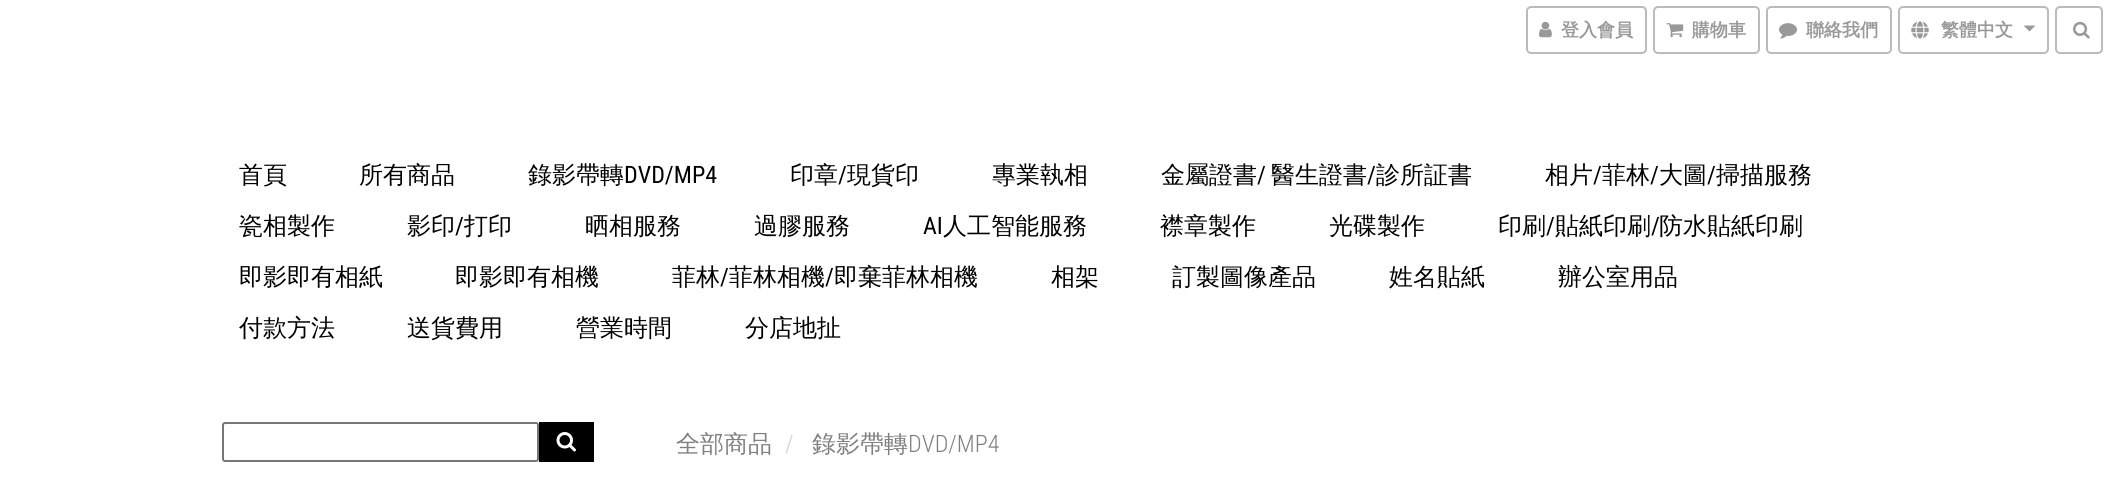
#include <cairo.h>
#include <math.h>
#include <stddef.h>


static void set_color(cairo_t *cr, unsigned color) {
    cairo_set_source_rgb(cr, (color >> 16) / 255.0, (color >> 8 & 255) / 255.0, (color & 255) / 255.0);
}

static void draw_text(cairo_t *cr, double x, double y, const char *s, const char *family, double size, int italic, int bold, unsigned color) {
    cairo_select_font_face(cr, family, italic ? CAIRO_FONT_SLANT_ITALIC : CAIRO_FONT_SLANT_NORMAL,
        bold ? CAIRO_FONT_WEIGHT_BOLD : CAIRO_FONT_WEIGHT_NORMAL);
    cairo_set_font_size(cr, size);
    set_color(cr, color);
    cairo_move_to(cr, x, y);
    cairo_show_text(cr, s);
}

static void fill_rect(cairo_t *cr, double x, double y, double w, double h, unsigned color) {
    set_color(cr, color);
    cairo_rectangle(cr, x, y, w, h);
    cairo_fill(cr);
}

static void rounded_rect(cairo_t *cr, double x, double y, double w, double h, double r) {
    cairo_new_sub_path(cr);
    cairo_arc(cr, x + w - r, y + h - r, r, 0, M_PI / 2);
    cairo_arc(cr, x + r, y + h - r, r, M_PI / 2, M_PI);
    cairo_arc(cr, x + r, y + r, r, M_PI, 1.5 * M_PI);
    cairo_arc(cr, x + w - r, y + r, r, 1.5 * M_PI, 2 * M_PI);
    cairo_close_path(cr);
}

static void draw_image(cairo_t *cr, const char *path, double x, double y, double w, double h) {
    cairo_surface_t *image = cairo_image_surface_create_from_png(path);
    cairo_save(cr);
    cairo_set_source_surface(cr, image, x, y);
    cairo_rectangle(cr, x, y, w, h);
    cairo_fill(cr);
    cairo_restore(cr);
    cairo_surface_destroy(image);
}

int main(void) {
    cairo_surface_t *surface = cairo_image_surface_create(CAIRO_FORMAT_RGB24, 2109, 497);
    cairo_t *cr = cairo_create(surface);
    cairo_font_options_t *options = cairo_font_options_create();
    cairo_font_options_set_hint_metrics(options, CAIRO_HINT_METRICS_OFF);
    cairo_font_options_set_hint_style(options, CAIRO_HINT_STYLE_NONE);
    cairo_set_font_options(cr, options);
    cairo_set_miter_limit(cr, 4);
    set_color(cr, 0xFFFFFF);
    cairo_paint(cr);
    rounded_rect(cr, 1527, 7, 119, 46, 4);
    set_color(cr, 0xBBBBBB);
    cairo_stroke(cr);
    draw_image(cr, "assets/img1.png", 1539, 21, 13, 17);
    draw_text(cr, 1561, 36, "登入會員", "WenQuanYi Zen Hei", 18, 0, 1, 0x999999);
    rounded_rect(cr, 1654, 7, 105, 46, 4);
    set_color(cr, 0xBBBBBB);
    cairo_stroke(cr);
    draw_image(cr, "assets/img2.png", 1666, 23, 18, 15);
    draw_text(cr, 1692, 36, "購物車", "WenQuanYi Zen Hei", 18, 0, 1, 0x999999);
    rounded_rect(cr, 1767, 7, 124, 46, 4);
    set_color(cr, 0xBBBBBB);
    cairo_stroke(cr);
    draw_image(cr, "assets/img3.png", 1779, 23, 18, 16);
    draw_text(cr, 1806, 36, "聯絡我們", "WenQuanYi Zen Hei", 18, 0, 1, 0x999999);
    rounded_rect(cr, 1899, 7, 149, 46, 4);
    set_color(cr, 0xBBBBBB);
    cairo_stroke(cr);
    draw_image(cr, "assets/img4.png", 1911, 21, 18, 18);
    draw_text(cr, 1941, 36, "繁體中文", "WenQuanYi Zen Hei", 18, 0, 1, 0x999999);
    cairo_new_path(cr);
    cairo_move_to(cr, 2023.5, 25.5);
    cairo_line_to(cr, 2035.5, 25.5);
    cairo_line_to(cr, 2029.5, 31.5);
    cairo_close_path(cr);
    cairo_fill(cr);
    rounded_rect(cr, 2056, 7, 46, 46, 4);
    set_color(cr, 0xBBBBBB);
    cairo_stroke(cr);
    draw_image(cr, "assets/img5.png", 2073, 21, 17, 18);
    draw_text(cr, 239, 183, "首頁", "WenQuanYi Zen Hei Medium", 24, 0, 0, 0x000000);
    draw_text(cr, 359, 183, "所有商品", "WenQuanYi Zen Hei Medium", 24, 0, 0, 0x000000);
    draw_text(cr, 528, 183, "錄影帶轉", "WenQuanYi Zen Hei Medium", 24, 0, 0, 0x000000);
    draw_text(cr, 624, 183, "DVD/MP4", "Roboto Condensed", 24, 0, 0, 0x000000);
    draw_text(cr, 790, 183, "印章", "WenQuanYi Zen Hei Medium", 24, 0, 0, 0x000000);
    draw_text(cr, 838, 183, "/", "Roboto Condensed", 24, 0, 0, 0x000000);
    draw_text(cr, 847, 183, "現貨印", "WenQuanYi Zen Hei Medium", 24, 0, 0, 0x000000);
    draw_text(cr, 992, 183, "專業執相", "WenQuanYi Zen Hei Medium", 24, 0, 0, 0x000000);
    draw_text(cr, 1161, 183, "金屬證書", "WenQuanYi Zen Hei Medium", 24, 0, 0, 0x000000);
    draw_text(cr, 1257, 183, "/", "Roboto Condensed", 24, 0, 0, 0x000000);
    draw_text(cr, 1271, 183, "醫生證書", "WenQuanYi Zen Hei Medium", 24, 0, 0, 0x000000);
    draw_text(cr, 1367, 183, "/", "Roboto Condensed", 24, 0, 0, 0x000000);
    draw_text(cr, 1376, 183, "診所証書", "WenQuanYi Zen Hei Medium", 24, 0, 0, 0x000000);
    draw_text(cr, 1545, 183, "相片", "WenQuanYi Zen Hei Medium", 24, 0, 0, 0x000000);
    draw_text(cr, 1593, 183, "/", "Roboto Condensed", 24, 0, 0, 0x000000);
    draw_text(cr, 1602, 183, "菲林", "WenQuanYi Zen Hei Medium", 24, 0, 0, 0x000000);
    draw_text(cr, 1650, 183, "/", "Roboto Condensed", 24, 0, 0, 0x000000);
    draw_text(cr, 1659, 183, "大圖", "WenQuanYi Zen Hei Medium", 24, 0, 0, 0x000000);
    draw_text(cr, 1707, 183, "/", "Roboto Condensed", 24, 0, 0, 0x000000);
    draw_text(cr, 1716, 183, "掃描服務", "WenQuanYi Zen Hei Medium", 24, 0, 0, 0x000000);
    draw_text(cr, 239, 234, "瓷相製作", "WenQuanYi Zen Hei Medium", 24, 0, 0, 0x000000);
    draw_text(cr, 407, 234, "影印", "WenQuanYi Zen Hei Medium", 24, 0, 0, 0x000000);
    draw_text(cr, 455, 234, "/", "Roboto Condensed", 24, 0, 0, 0x000000);
    draw_text(cr, 464, 234, "打印", "WenQuanYi Zen Hei Medium", 24, 0, 0, 0x000000);
    draw_text(cr, 585, 234, "晒相服務", "WenQuanYi Zen Hei Medium", 24, 0, 0, 0x000000);
    draw_text(cr, 754, 234, "過膠服務", "WenQuanYi Zen Hei Medium", 24, 0, 0, 0x000000);
    draw_text(cr, 923, 234, "AI", "Roboto Condensed", 24, 0, 0, 0x000000);
    draw_text(cr, 943, 234, "人工智能服務", "WenQuanYi Zen Hei Medium", 24, 0, 0, 0x000000);
    draw_text(cr, 1160, 234, "襟章製作", "WenQuanYi Zen Hei Medium", 24, 0, 0, 0x000000);
    draw_text(cr, 1329, 234, "光碟製作", "WenQuanYi Zen Hei Medium", 24, 0, 0, 0x000000);
    draw_text(cr, 1498, 234, "印刷", "WenQuanYi Zen Hei Medium", 24, 0, 0, 0x000000);
    draw_text(cr, 1546, 234, "/", "Roboto Condensed", 24, 0, 0, 0x000000);
    draw_text(cr, 1555, 234, "貼紙印刷", "WenQuanYi Zen Hei Medium", 24, 0, 0, 0x000000);
    draw_text(cr, 1651, 234, "/", "Roboto Condensed", 24, 0, 0, 0x000000);
    draw_text(cr, 1659, 234, "防水貼紙印刷", "WenQuanYi Zen Hei Medium", 24, 0, 0, 0x000000);
    draw_text(cr, 239, 285, "即影即有相紙", "WenQuanYi Zen Hei Medium", 24, 0, 0, 0x000000);
    draw_text(cr, 455, 285, "即影即有相機", "WenQuanYi Zen Hei Medium", 24, 0, 0, 0x000000);
    draw_text(cr, 672, 285, "菲林", "WenQuanYi Zen Hei Medium", 24, 0, 0, 0x000000);
    draw_text(cr, 720, 285, "/", "Roboto Condensed", 24, 0, 0, 0x000000);
    draw_text(cr, 729, 285, "菲林相機", "WenQuanYi Zen Hei Medium", 24, 0, 0, 0x000000);
    draw_text(cr, 825, 285, "/", "Roboto Condensed", 24, 0, 0, 0x000000);
    draw_text(cr, 834, 285, "即棄菲林相機", "WenQuanYi Zen Hei Medium", 24, 0, 0, 0x000000);
    draw_text(cr, 1051, 285, "相架", "WenQuanYi Zen Hei Medium", 24, 0, 0, 0x000000);
    draw_text(cr, 1172, 285, "訂製圖像產品", "WenQuanYi Zen Hei Medium", 24, 0, 0, 0x000000);
    draw_text(cr, 1389, 285, "姓名貼紙", "WenQuanYi Zen Hei Medium", 24, 0, 0, 0x000000);
    draw_text(cr, 1558, 285, "辦公室用品", "WenQuanYi Zen Hei Medium", 24, 0, 0, 0x000000);
    draw_text(cr, 239, 336, "付款方法", "WenQuanYi Zen Hei Medium", 24, 0, 0, 0x000000);
    draw_text(cr, 407, 336, "送貨費用", "WenQuanYi Zen Hei Medium", 24, 0, 0, 0x000000);
    draw_text(cr, 576, 336, "營業時間", "WenQuanYi Zen Hei Medium", 24, 0, 0, 0x000000);
    draw_text(cr, 745, 336, "分店地扯", "WenQuanYi Zen Hei Medium", 24, 0, 0, 0x000000);
    rounded_rect(cr, 223, 423, 315, 38, 2);
    set_color(cr, 0x767676);
    cairo_stroke(cr);
    fill_rect(cr, 539, 422, 55, 40, 0x000000);
    draw_image(cr, "assets/img6.png", 556, 432, 20, 20);
    draw_text(cr, 676, 452, "全部商品", "WenQuanYi Zen Hei Medium", 24, 0, 0, 0x808080);
    draw_text(cr, 785, 452, "/", "Roboto Condensed Light", 24, 0, 0, 0xCCCCCC);
    draw_text(cr, 812, 452, "錄影帶轉", "WenQuanYi Zen Hei Medium", 24, 0, 0, 0x808080);
    draw_text(cr, 908, 452, "DVD/MP4", "Roboto Condensed Light", 24, 0, 0, 0x808080);
    cairo_surface_write_to_png(surface, "output.png");
    cairo_font_options_destroy(options);
    cairo_destroy(cr);
    cairo_surface_destroy(surface);
    return 0;
}
